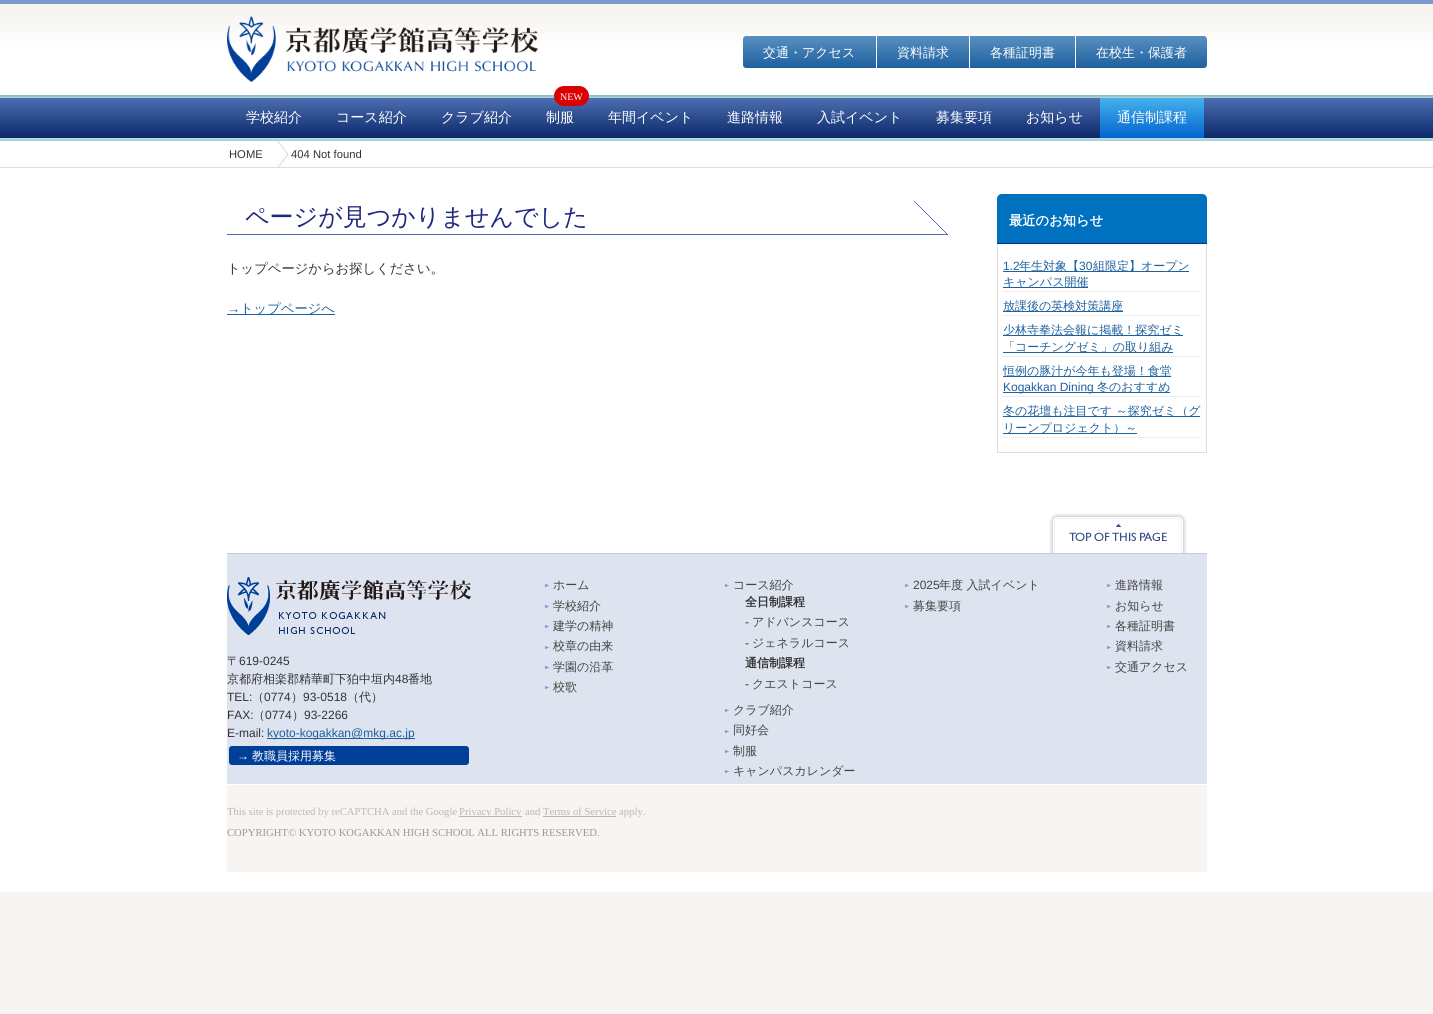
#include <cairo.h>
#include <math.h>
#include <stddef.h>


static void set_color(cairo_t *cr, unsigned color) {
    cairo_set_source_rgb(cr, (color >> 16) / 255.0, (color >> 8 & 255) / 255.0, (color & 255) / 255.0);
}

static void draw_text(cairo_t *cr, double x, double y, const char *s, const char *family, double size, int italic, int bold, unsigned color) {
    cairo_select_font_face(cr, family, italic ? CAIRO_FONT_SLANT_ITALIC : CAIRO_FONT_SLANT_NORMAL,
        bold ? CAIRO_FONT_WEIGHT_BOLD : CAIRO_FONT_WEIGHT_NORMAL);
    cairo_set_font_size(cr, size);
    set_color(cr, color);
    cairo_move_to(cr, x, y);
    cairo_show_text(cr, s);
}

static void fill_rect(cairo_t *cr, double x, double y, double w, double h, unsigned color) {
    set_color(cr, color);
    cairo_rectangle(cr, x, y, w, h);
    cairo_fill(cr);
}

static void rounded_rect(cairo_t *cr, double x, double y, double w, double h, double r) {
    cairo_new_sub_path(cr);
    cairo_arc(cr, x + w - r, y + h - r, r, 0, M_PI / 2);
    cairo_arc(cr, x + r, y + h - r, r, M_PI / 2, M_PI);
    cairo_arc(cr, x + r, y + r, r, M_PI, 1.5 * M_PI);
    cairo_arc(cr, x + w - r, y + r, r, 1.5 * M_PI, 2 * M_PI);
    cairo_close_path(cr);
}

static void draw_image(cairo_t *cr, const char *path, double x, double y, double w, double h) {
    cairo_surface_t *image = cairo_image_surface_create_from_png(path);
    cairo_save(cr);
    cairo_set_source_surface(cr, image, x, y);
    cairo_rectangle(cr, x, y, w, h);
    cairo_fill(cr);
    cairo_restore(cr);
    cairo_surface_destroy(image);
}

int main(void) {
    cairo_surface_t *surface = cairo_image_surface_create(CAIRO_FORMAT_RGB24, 1433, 1014);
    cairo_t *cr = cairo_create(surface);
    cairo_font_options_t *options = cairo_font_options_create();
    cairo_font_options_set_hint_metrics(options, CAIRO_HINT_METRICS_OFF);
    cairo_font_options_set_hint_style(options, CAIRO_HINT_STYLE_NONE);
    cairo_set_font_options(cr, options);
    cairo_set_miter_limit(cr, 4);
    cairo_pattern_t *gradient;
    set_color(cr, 0xF7F4F2);
    cairo_paint(cr);
    draw_image(cr, "assets/img1.png", 0, 0, 1433, 141);
    draw_image(cr, "assets/img2.png", 227, 16, 311, 66);
    gradient = cairo_pattern_create_linear(810, 68, 810, 36);
    cairo_pattern_add_color_stop_rgba(gradient, 0, 0.114, 0.376, 0.624, 1);
    cairo_pattern_add_color_stop_rgba(gradient, 1, 0.349, 0.565, 0.757, 1);
    cairo_set_source(cr, gradient);
    cairo_pattern_destroy(gradient);
    cairo_new_path(cr);
    cairo_move_to(cr, 746, 36);
    cairo_line_to(cr, 876, 36);
    cairo_line_to(cr, 876, 68);
    cairo_line_to(cr, 746, 68);
    cairo_curve_to(cr, 744.5, 68, 743, 66.5, 743, 65);
    cairo_line_to(cr, 743, 39);
    cairo_curve_to(cr, 743, 37.5, 744.5, 36, 746, 36);
    cairo_close_path(cr);
    cairo_fill(cr);
    draw_text(cr, 763, 57, "交通・アクセス", "WenQuanYi Zen Hei Medium", 13, 0, 0, 0xFFFFFF);
    gradient = cairo_pattern_create_linear(923, 68, 923, 36);
    cairo_pattern_add_color_stop_rgba(gradient, 0, 0.114, 0.376, 0.624, 1);
    cairo_pattern_add_color_stop_rgba(gradient, 1, 0.349, 0.565, 0.757, 1);
    cairo_set_source(cr, gradient);
    cairo_pattern_destroy(gradient);
    cairo_rectangle(cr, 877, 36, 92, 32);
    cairo_fill(cr);
    draw_text(cr, 897, 57, "資料請求", "WenQuanYi Zen Hei Medium", 13, 0, 0, 0xFFFFFF);
    gradient = cairo_pattern_create_linear(1023, 68, 1023, 36);
    cairo_pattern_add_color_stop_rgba(gradient, 0, 0.114, 0.376, 0.624, 1);
    cairo_pattern_add_color_stop_rgba(gradient, 1, 0.349, 0.565, 0.757, 1);
    cairo_set_source(cr, gradient);
    cairo_pattern_destroy(gradient);
    cairo_rectangle(cr, 970, 36, 105, 32);
    cairo_fill(cr);
    draw_text(cr, 990, 57, "各種証明書", "WenQuanYi Zen Hei Medium", 13, 0, 0, 0xFFFFFF);
    gradient = cairo_pattern_create_linear(1142, 68, 1142, 36);
    cairo_pattern_add_color_stop_rgba(gradient, 0, 0.114, 0.376, 0.624, 1);
    cairo_pattern_add_color_stop_rgba(gradient, 1, 0.349, 0.565, 0.757, 1);
    cairo_set_source(cr, gradient);
    cairo_pattern_destroy(gradient);
    cairo_new_path(cr);
    cairo_move_to(cr, 1076, 36);
    cairo_line_to(cr, 1204, 36);
    cairo_curve_to(cr, 1205.5, 36, 1207, 37.5, 1207, 39);
    cairo_line_to(cr, 1207, 65);
    cairo_curve_to(cr, 1207, 66.5, 1205.5, 68, 1204, 68);
    cairo_line_to(cr, 1076, 68);
    cairo_close_path(cr);
    cairo_fill(cr);
    draw_text(cr, 1096, 57, "在校生・保護者", "WenQuanYi Zen Hei Medium", 13, 0, 0, 0xFFFFFF);
    draw_image(cr, "assets/img3.png", 0, 98, 1433, 40);
    draw_text(cr, 246, 122, "学校紹介", "WenQuanYi Zen Hei Medium", 14, 0, 0, 0xFFFFFF);
    draw_text(cr, 336, 122, "コース紹介", "WenQuanYi Zen Hei Medium", 14, 0, 0, 0xFFFFFF);
    draw_text(cr, 441, 122, "クラブ紹介", "WenQuanYi Zen Hei Medium", 14, 0, 0, 0xFFFFFF);
    set_color(cr, 0xDA0000);
    rounded_rect(cr, 554, 86, 35, 20, 10);
    cairo_fill(cr);
    draw_text(cr, 560, 100, "NEW", "Liberation Serif", 10, 0, 0, 0xFFFFFF);
    draw_text(cr, 546, 122, "制服", "WenQuanYi Zen Hei Medium", 14, 0, 0, 0xFFFFFF);
    draw_text(cr, 608, 122, "年間イベント", "WenQuanYi Zen Hei Medium", 14, 0, 0, 0xFFFFFF);
    draw_text(cr, 727, 122, "進路情報", "WenQuanYi Zen Hei Medium", 14, 0, 0, 0xFFFFFF);
    draw_text(cr, 817, 122, "入試イベント", "WenQuanYi Zen Hei Medium", 14, 0, 0, 0xFFFFFF);
    draw_text(cr, 936, 122, "募集要項", "WenQuanYi Zen Hei Medium", 14, 0, 0, 0xFFFFFF);
    draw_text(cr, 1026, 122, "お知らせ", "WenQuanYi Zen Hei Medium", 14, 0, 0, 0xFFFFFF);
    gradient = cairo_pattern_create_linear(1152, 138, 1152, 98);
    cairo_pattern_add_color_stop_rgba(gradient, 0, 0.008, 0.392, 0.812, 1);
    cairo_pattern_add_color_stop_rgba(gradient, 1, 0.271, 0.698, 0.925, 1);
    cairo_set_source(cr, gradient);
    cairo_pattern_destroy(gradient);
    cairo_rectangle(cr, 1100, 98, 104, 40);
    cairo_fill(cr);
    draw_text(cr, 1117, 122, "通信制課程", "WenQuanYi Zen Hei Medium", 14, 0, 0, 0xFFFFFF);
    fill_rect(cr, 0, 141, 1433, 26, 0xFFFFFF);
    fill_rect(cr, 0, 167, 1433, 1, 0xDDDDDD);
    draw_text(cr, 229, 158, "HOME", "Liberation Sans", 11.25, 0, 0, 0x333333);
    draw_image(cr, "assets/img4.png", 277, 141, 12, 26);
    draw_text(cr, 291, 158, "404 Not found", "Liberation Sans", 11.25, 0, 0, 0x333333);
    fill_rect(cr, 0, 168, 1433, 724, 0xFFFFFF);
    draw_image(cr, "assets/img5.png", 227, 201, 721, 34);
    draw_text(cr, 245, 225, "ページが見つかりませんでした", "WenQuanYi Zen Hei Medium", 24, 0, 0, 0x202781);
    draw_text(cr, 227, 273, "トップページからお探しください。", "WenQuanYi Zen Hei Medium", 13.3, 0, 0, 0x333333);
    draw_text(cr, 227, 313, "→", "Liberation Sans", 13.3, 0, 0, 0x1D619F);
    fill_rect(cr, 227, 314, 108, 1, 0x1D619F);
    draw_text(cr, 240, 313, "トップページへ", "WenQuanYi Zen Hei Medium", 13.3, 0, 0, 0x1D619F);
    set_color(cr, 0x0071BF);
    cairo_new_path(cr);
    cairo_move_to(cr, 1002, 194);
    cairo_line_to(cr, 1202, 194);
    cairo_curve_to(cr, 1205, 194, 1207, 196, 1207, 199);
    cairo_line_to(cr, 1207, 244);
    cairo_line_to(cr, 997, 244);
    cairo_line_to(cr, 997, 199);
    cairo_curve_to(cr, 997, 196, 999, 194, 1002, 194);
    cairo_close_path(cr);
    cairo_fill(cr);
    fill_rect(cr, 997, 243, 210, 1, 0x0D2F85);
    draw_text(cr, 1009, 225, "最近のお知らせ", "WenQuanYi Zen Hei", 13.3, 0, 1, 0xFFFFFF);
    fill_rect(cr, 1206, 244, 1, 209, 0xDDDDDD);
    fill_rect(cr, 997, 452, 210, 1, 0xDDDDDD);
    fill_rect(cr, 997, 244, 1, 209, 0xDDDDDD);
    cairo_new_path(cr);
    cairo_move_to(cr, 1003, 291.5);
    cairo_line_to(cr, 1201, 291.5);
    cairo_set_line_width(cr, 1);
    cairo_set_dash(cr, (double[]){1, 1}, 2, 0);
    cairo_stroke(cr);
    draw_text(cr, 1003, 270, "1.2", "Liberation Sans", 12, 0, 0, 0x1D619F);
    fill_rect(cr, 1003, 271, 186, 1, 0x1D619F);
    draw_text(cr, 1019, 270, "年生対象【", "WenQuanYi Zen Hei Medium", 12, 0, 0, 0x1D619F);
    draw_text(cr, 1079, 270, "30", "Liberation Sans", 12, 0, 0, 0x1D619F);
    draw_text(cr, 1093, 270, "組限定】オープン", "WenQuanYi Zen Hei Medium", 12, 0, 0, 0x1D619F);
    fill_rect(cr, 1003, 287, 85, 1, 0x1D619F);
    draw_text(cr, 1003, 286, "キャンパス開催", "WenQuanYi Zen Hei Medium", 12, 0, 0, 0x1D619F);
    cairo_new_path(cr);
    cairo_move_to(cr, 1003, 315.5);
    cairo_line_to(cr, 1201, 315.5);
    set_color(cr, 0xDDDDDD);
    cairo_stroke(cr);
    fill_rect(cr, 1003, 311, 120, 1, 0x1D619F);
    draw_text(cr, 1003, 310, "放課後の英検対策講座", "WenQuanYi Zen Hei Medium", 12, 0, 0, 0x1D619F);
    cairo_new_path(cr);
    cairo_move_to(cr, 1003, 356.5);
    cairo_line_to(cr, 1201, 356.5);
    set_color(cr, 0xDDDDDD);
    cairo_stroke(cr);
    fill_rect(cr, 1003, 335, 180, 1, 0x1D619F);
    draw_text(cr, 1003, 334, "少林寺拳法会報に掲載！探究ゼミ", "WenQuanYi Zen Hei Medium", 12, 0, 0, 0x1D619F);
    fill_rect(cr, 1003, 352, 170, 1, 0x1D619F);
    draw_text(cr, 1003, 351, "「コーチングゼミ」の取り組み", "WenQuanYi Zen Hei Medium", 12, 0, 0, 0x1D619F);
    cairo_new_path(cr);
    cairo_move_to(cr, 1003, 396.5);
    cairo_line_to(cr, 1201, 396.5);
    set_color(cr, 0xDDDDDD);
    cairo_stroke(cr);
    fill_rect(cr, 1003, 376, 168, 1, 0x1D619F);
    draw_text(cr, 1003, 375, "恒例の豚汁が今年も登場！食堂", "WenQuanYi Zen Hei Medium", 12, 0, 0, 0x1D619F);
    fill_rect(cr, 1003, 392, 167, 1, 0x1D619F);
    draw_text(cr, 1003, 391, "Kogakkan Dining", "Liberation Sans", 12, 0, 0, 0x1D619F);
    draw_text(cr, 1097, 391, "冬のおすすめ", "WenQuanYi Zen Hei Medium", 12, 0, 0, 0x1D619F);
    cairo_new_path(cr);
    cairo_move_to(cr, 1003, 437.5);
    cairo_line_to(cr, 1201, 437.5);
    set_color(cr, 0xDDDDDD);
    cairo_stroke(cr);
    fill_rect(cr, 1003, 416, 197, 1, 0x1D619F);
    draw_text(cr, 1003, 415, "冬の花壇も注目です ～探究ゼミ（グ", "WenQuanYi Zen Hei Medium", 12, 0, 0, 0x1D619F);
    fill_rect(cr, 1003, 433, 134, 1, 0x1D619F);
    draw_text(cr, 1003, 432, "リーンプロジェクト）～", "WenQuanYi Zen Hei Medium", 12, 0, 0, 0x1D619F);
    draw_image(cr, "assets/img6.png", 1049, 513, 138, 40);
    fill_rect(cr, 227, 554, 980, 230, 0xDDE3EF);
    fill_rect(cr, 227, 553, 980, 1, 0xC0CAE0);
    draw_image(cr, "assets/img7.png", 545, 584, 4, 3);
    draw_text(cr, 553, 589, "ホーム", "WenQuanYi Zen Hei Medium", 12, 0, 0, 0x444444);
    draw_image(cr, "assets/img7.png", 545, 605, 4, 3);
    draw_text(cr, 553, 610, "学校紹介", "WenQuanYi Zen Hei Medium", 12, 0, 0, 0x444444);
    draw_image(cr, "assets/img7.png", 545, 625, 4, 3);
    draw_text(cr, 553, 630, "建学の精神", "WenQuanYi Zen Hei Medium", 12, 0, 0, 0x444444);
    draw_image(cr, "assets/img7.png", 545, 646, 4, 3);
    draw_text(cr, 553, 650, "校章の由来", "WenQuanYi Zen Hei Medium", 12, 0, 0, 0x444444);
    draw_image(cr, "assets/img7.png", 545, 666, 4, 3);
    draw_text(cr, 553, 671, "学園の沿革", "WenQuanYi Zen Hei Medium", 12, 0, 0, 0x444444);
    draw_image(cr, "assets/img7.png", 545, 686, 4, 3);
    draw_text(cr, 553, 691, "校歌", "WenQuanYi Zen Hei Medium", 12, 0, 0, 0x444444);
    draw_image(cr, "assets/img7.png", 725, 584, 4, 3);
    draw_text(cr, 733, 589, "コース紹介", "WenQuanYi Zen Hei Medium", 12, 0, 0, 0x444444);
    draw_text(cr, 745, 606, "全日制課程", "WenQuanYi Zen Hei", 12, 0, 1, 0x333333);
    draw_text(cr, 745, 626, "-", "Liberation Sans", 12, 0, 0, 0x333333);
    draw_text(cr, 752, 626, "アドバンスコース", "WenQuanYi Zen Hei Medium", 12, 0, 0, 0x444444);
    draw_text(cr, 745, 647, "-", "Liberation Sans", 12, 0, 0, 0x333333);
    draw_text(cr, 752, 647, "ジェネラルコース", "WenQuanYi Zen Hei Medium", 12, 0, 0, 0x444444);
    draw_text(cr, 745, 667, "通信制課程", "WenQuanYi Zen Hei", 12, 0, 1, 0x333333);
    draw_text(cr, 745, 688, "-", "Liberation Sans", 12, 0, 0, 0x333333);
    draw_text(cr, 752, 688, "クエストコース", "WenQuanYi Zen Hei Medium", 12, 0, 0, 0x444444);
    draw_image(cr, "assets/img7.png", 725, 709, 4, 3);
    draw_text(cr, 733, 714, "クラブ紹介", "WenQuanYi Zen Hei Medium", 12, 0, 0, 0x444444);
    draw_image(cr, "assets/img7.png", 725, 730, 4, 3);
    draw_text(cr, 733, 734, "同好会", "WenQuanYi Zen Hei Medium", 12, 0, 0, 0x444444);
    draw_image(cr, "assets/img7.png", 725, 750, 4, 3);
    draw_text(cr, 733, 755, "制服", "WenQuanYi Zen Hei Medium", 12, 0, 0, 0x444444);
    draw_image(cr, "assets/img7.png", 725, 770, 4, 3);
    draw_text(cr, 733, 775, "キャンパスカレンダー", "WenQuanYi Zen Hei Medium", 12, 0, 0, 0x444444);
    draw_image(cr, "assets/img8.png", 905, 584, 4, 3);
    draw_text(cr, 913, 589, "2025", "Liberation Sans", 12, 0, 0, 0x444444);
    draw_text(cr, 939, 589, "年度 入試イベント", "WenQuanYi Zen Hei Medium", 12, 0, 0, 0x444444);
    draw_image(cr, "assets/img8.png", 905, 605, 4, 3);
    draw_text(cr, 913, 610, "募集要項", "WenQuanYi Zen Hei Medium", 12, 0, 0, 0x444444);
    draw_image(cr, "assets/img8.png", 1107, 584, 4, 3);
    draw_text(cr, 1115, 589, "進路情報", "WenQuanYi Zen Hei Medium", 12, 0, 0, 0x444444);
    draw_image(cr, "assets/img8.png", 1107, 605, 4, 3);
    draw_text(cr, 1115, 610, "お知らせ", "WenQuanYi Zen Hei Medium", 12, 0, 0, 0x444444);
    draw_image(cr, "assets/img8.png", 1107, 625, 4, 3);
    draw_text(cr, 1115, 630, "各種証明書", "WenQuanYi Zen Hei Medium", 12, 0, 0, 0x444444);
    draw_image(cr, "assets/img8.png", 1107, 646, 4, 3);
    draw_text(cr, 1115, 650, "資料請求", "WenQuanYi Zen Hei Medium", 12, 0, 0, 0x444444);
    draw_image(cr, "assets/img8.png", 1107, 666, 4, 3);
    draw_text(cr, 1115, 671, "交通アクセス", "WenQuanYi Zen Hei Medium", 12, 0, 0, 0x444444);
    draw_image(cr, "assets/img9.png", 227, 577, 244, 58);
    draw_text(cr, 227, 665, "〒", "WenQuanYi Zen Hei Medium", 12, 0, 0, 0x333333);
    draw_text(cr, 239, 665, "619-0245", "Liberation Sans", 12, 0, 0, 0x333333);
    draw_text(cr, 227, 683, "京都府相楽郡精華町下狛中垣内", "WenQuanYi Zen Hei Medium", 12, 0, 0, 0x333333);
    draw_text(cr, 395, 683, "48", "Liberation Sans", 12, 0, 0, 0x333333);
    draw_text(cr, 408, 683, "番地", "WenQuanYi Zen Hei Medium", 12, 0, 0, 0x333333);
    draw_text(cr, 227, 701, "TEL:", "Liberation Sans", 12, 0, 0, 0x333333);
    draw_text(cr, 252, 701, "（", "WenQuanYi Zen Hei Medium", 12, 0, 0, 0x333333);
    draw_text(cr, 264, 701, "0774", "Liberation Sans", 12, 0, 0, 0x333333);
    draw_text(cr, 291, 701, "）", "WenQuanYi Zen Hei Medium", 12, 0, 0, 0x333333);
    draw_text(cr, 303, 701, "93-0518", "Liberation Sans", 12, 0, 0, 0x333333);
    draw_text(cr, 347, 701, "（代）", "WenQuanYi Zen Hei Medium", 12, 0, 0, 0x333333);
    draw_text(cr, 227, 719, "FAX:", "Liberation Sans", 12, 0, 0, 0x333333);
    draw_text(cr, 253, 719, "（", "WenQuanYi Zen Hei Medium", 12, 0, 0, 0x333333);
    draw_text(cr, 265, 719, "0774", "Liberation Sans", 12, 0, 0, 0x333333);
    draw_text(cr, 292, 719, "）", "WenQuanYi Zen Hei Medium", 12, 0, 0, 0x333333);
    draw_text(cr, 304, 719, "93-2266", "Liberation Sans", 12, 0, 0, 0x333333);
    draw_text(cr, 227, 737, "E-mail:", "Liberation Sans", 12, 0, 0, 0x333333);
    fill_rect(cr, 267, 738, 148, 1, 0x1D619F);
    draw_text(cr, 267, 737, "kyoto-kogakkan@mkg.ac.jp", "Liberation Sans", 12, 0, 0, 0x1D619F);
    set_color(cr, 0x003F97);
    rounded_rect(cr, 229, 746, 240, 19, 3);
    cairo_fill(cr);
    draw_text(cr, 237, 760, "→", "Liberation Sans", 12, 0, 0, 0xFFFFFF);
    draw_text(cr, 252, 760, "教職員採用募集", "WenQuanYi Zen Hei Medium", 12, 0, 0, 0xFFFFFF);
    fill_rect(cr, 227, 785, 980, 87, 0xF7F4F2);
    draw_text(cr, 227, 815, "This site is protected by reCAPTCHA and the Google", "Liberation Serif", 10.65, 0, 0, 0xB9B7B6);
    fill_rect(cr, 459, 816, 63, 1, 0xB9B7B6);
    draw_text(cr, 459, 815, "Privacy Policy", "Liberation Serif", 10.65, 0, 0, 0xB9B7B6);
    draw_text(cr, 525, 815, "and Terms of Service apply.", "Liberation Serif", 10.65, 0, 0, 0xB9B7B6);
    fill_rect(cr, 543, 816, 73, 1, 0xB9B7B6);
    draw_text(cr, 227, 836, "COPYRIGHT© KYOTO KOGAKKAN HIGH SCHOOL ALL RIGHTS RESERVED.", "Liberation Serif", 10.65, 0, 0, 0x999999);
    cairo_surface_write_to_png(surface, "output.png");
    cairo_font_options_destroy(options);
    cairo_destroy(cr);
    cairo_surface_destroy(surface);
    return 0;
}
